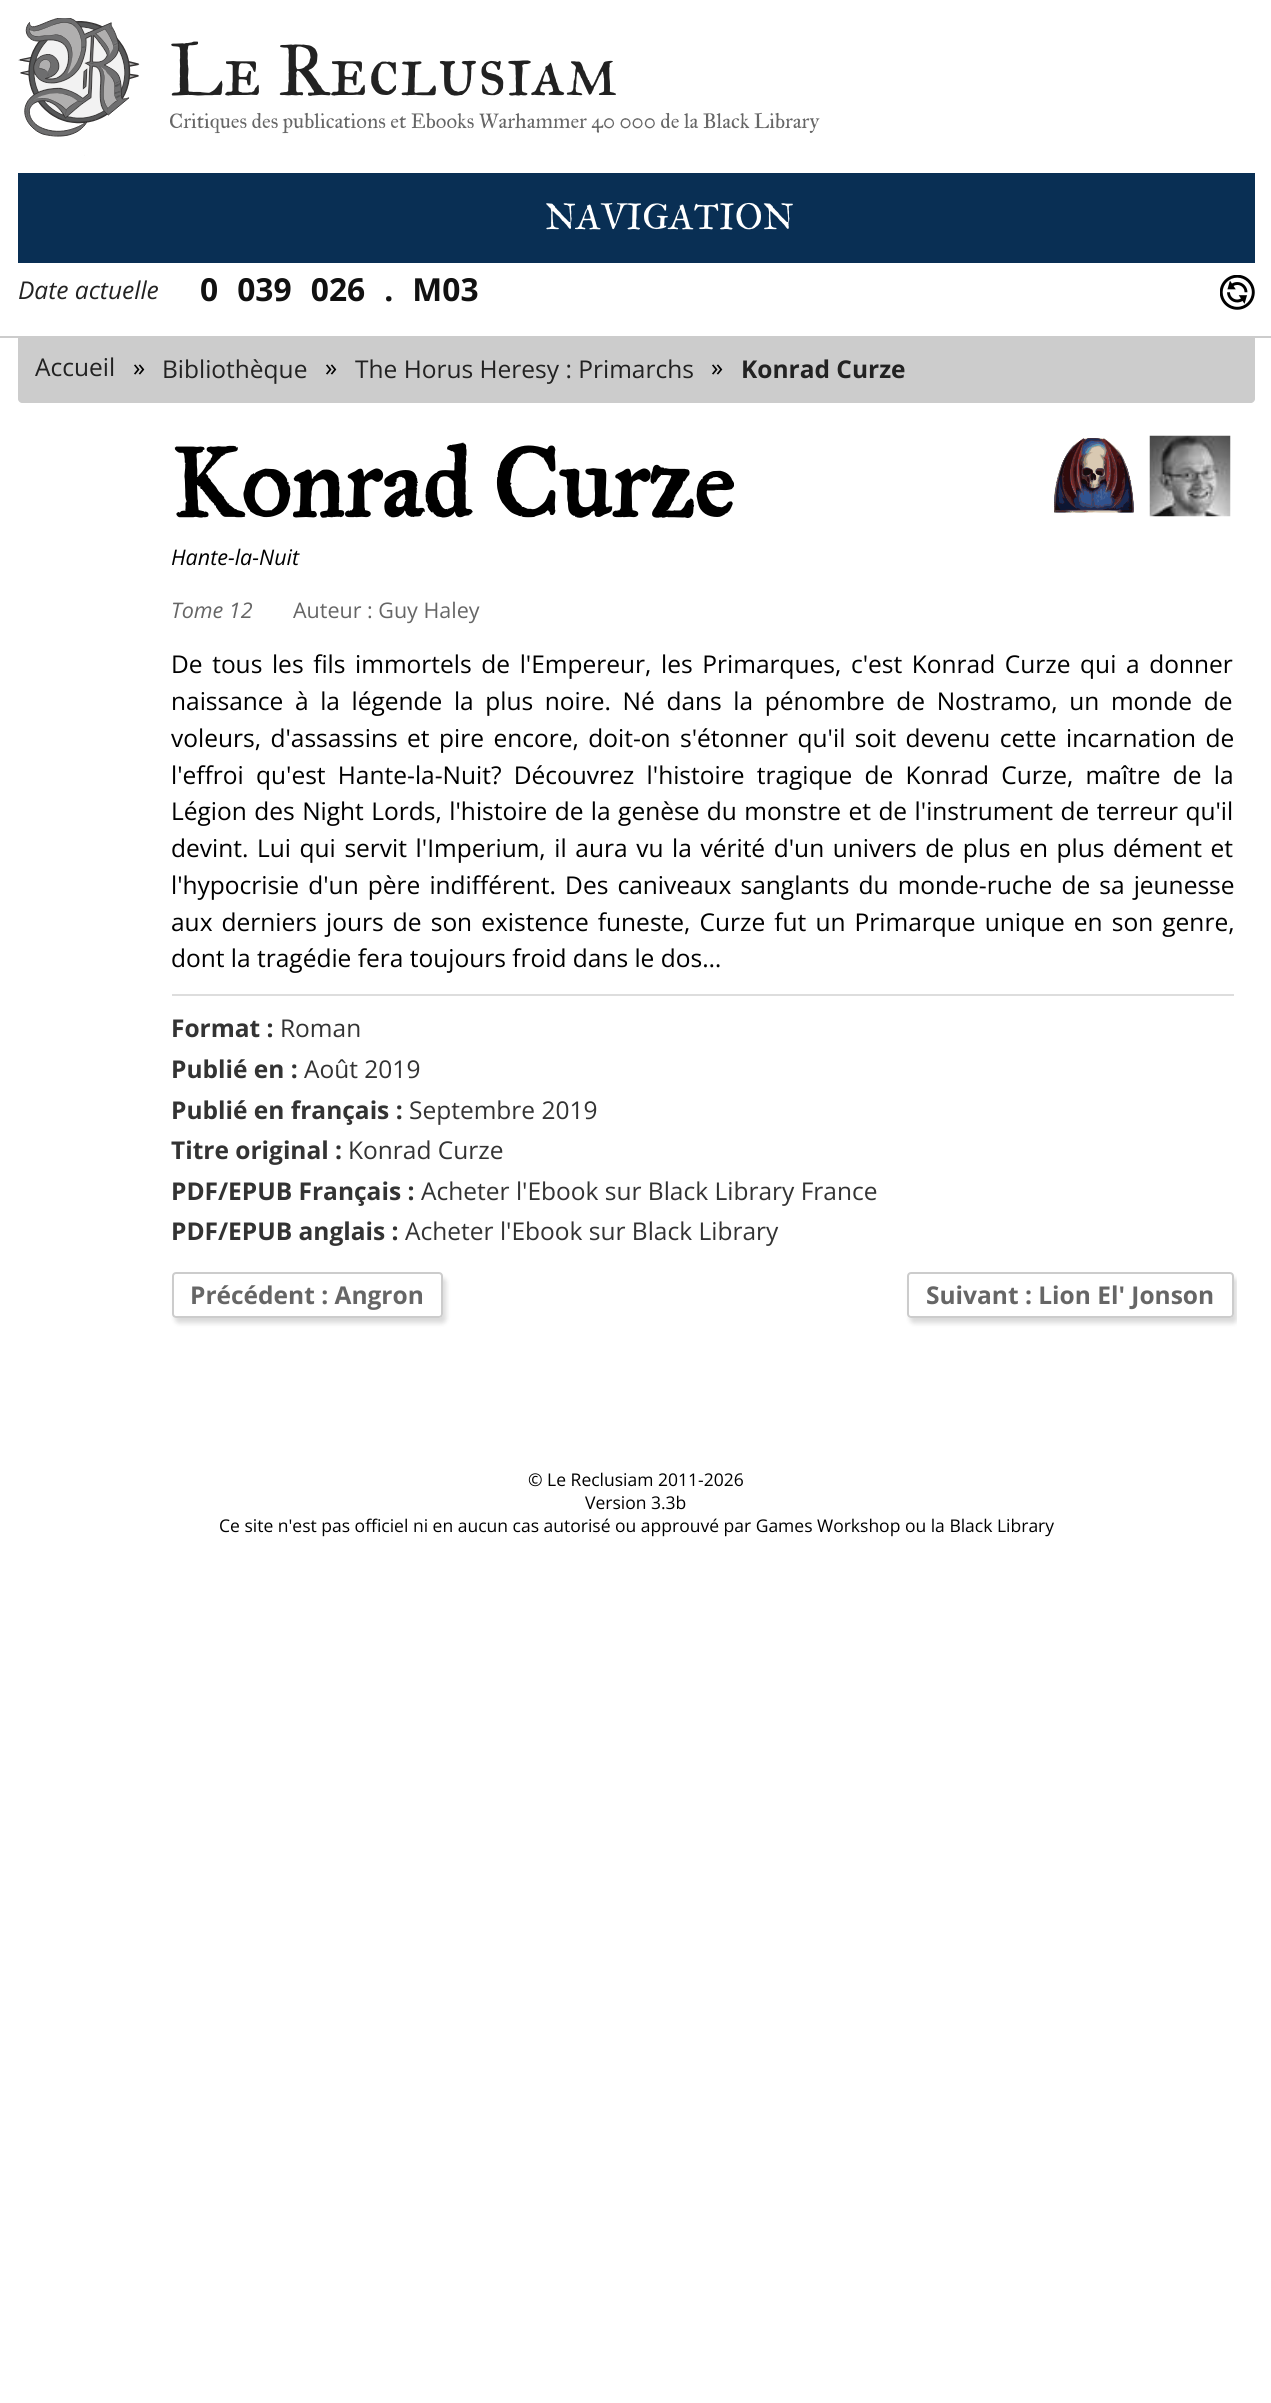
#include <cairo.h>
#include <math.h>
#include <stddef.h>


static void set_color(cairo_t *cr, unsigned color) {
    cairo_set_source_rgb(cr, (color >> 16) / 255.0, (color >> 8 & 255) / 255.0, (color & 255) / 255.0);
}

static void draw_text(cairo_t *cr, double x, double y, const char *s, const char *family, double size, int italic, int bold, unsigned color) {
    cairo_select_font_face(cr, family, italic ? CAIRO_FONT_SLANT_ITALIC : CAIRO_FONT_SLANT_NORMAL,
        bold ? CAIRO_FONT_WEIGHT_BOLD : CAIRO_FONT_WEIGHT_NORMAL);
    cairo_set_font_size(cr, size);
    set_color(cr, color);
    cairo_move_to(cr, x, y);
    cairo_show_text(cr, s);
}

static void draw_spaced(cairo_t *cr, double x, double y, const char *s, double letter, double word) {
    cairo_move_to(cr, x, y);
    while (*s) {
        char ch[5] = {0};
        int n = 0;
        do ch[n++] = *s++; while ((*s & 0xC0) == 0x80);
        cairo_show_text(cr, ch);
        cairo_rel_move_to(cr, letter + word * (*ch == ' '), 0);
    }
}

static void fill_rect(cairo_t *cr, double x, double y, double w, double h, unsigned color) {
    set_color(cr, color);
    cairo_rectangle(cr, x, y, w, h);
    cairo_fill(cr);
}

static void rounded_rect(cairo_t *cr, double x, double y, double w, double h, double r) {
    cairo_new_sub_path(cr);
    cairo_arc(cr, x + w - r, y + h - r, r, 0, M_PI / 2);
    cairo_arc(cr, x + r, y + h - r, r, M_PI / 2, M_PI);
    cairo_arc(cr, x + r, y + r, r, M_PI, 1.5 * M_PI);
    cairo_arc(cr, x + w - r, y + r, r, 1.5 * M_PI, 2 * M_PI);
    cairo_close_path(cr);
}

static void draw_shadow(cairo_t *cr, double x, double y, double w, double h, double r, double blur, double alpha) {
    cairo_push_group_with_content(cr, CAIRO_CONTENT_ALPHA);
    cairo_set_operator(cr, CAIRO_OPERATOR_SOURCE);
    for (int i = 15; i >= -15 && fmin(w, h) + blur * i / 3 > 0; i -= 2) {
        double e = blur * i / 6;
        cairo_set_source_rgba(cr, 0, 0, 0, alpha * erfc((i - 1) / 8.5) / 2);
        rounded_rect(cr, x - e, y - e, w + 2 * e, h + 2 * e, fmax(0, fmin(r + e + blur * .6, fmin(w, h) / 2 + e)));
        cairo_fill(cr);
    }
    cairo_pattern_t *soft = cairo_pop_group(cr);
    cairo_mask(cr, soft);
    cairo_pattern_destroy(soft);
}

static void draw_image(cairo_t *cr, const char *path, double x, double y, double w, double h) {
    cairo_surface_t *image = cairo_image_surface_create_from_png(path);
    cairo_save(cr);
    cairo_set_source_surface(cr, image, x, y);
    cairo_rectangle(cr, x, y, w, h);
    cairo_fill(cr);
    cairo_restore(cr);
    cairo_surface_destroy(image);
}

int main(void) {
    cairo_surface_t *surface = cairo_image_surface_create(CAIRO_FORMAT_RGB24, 1271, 2403);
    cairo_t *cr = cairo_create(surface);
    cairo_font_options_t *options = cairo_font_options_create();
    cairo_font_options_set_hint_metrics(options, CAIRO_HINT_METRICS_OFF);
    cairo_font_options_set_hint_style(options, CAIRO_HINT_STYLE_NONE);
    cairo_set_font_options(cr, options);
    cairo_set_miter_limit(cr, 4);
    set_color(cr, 0xFFFFFF);
    cairo_paint(cr);
    fill_rect(cr, 0, 336, 1271, 2, 0xCCCCCC);
    draw_image(cr, "assets/img1.png", 18, 18, 122, 138);
    draw_text(cr, 169, 95, "Le Reclusiam", "IM FELL Great Primer SC", 73.5, 0, 0, 0x222222);
    draw_text(cr, 169, 128, "Critiques des publications et Ebooks Warhammer 40 000 de la Black Library", "IM FELL Great Primer", 20.8, 0, 0, 0x666666);
    fill_rect(cr, 18, 173, 1237, 90, 0x092F54);
    draw_text(cr, 545, 229, "NAVIGATION", "IM FELL Great Primer SC", 36.75, 0, 0, 0xFFFFFF);
    draw_text(cr, 18, 299, "Date actuelle", "Open Sans", 24.5, 1, 0, 0x222222);
    draw_text(cr, 200, 301, "0 039 026 . M03", "Open Sans", 31.75, 0, 1, 0x111111);
    draw_image(cr, "assets/img2.png", 1220, 275, 35, 35);
    set_color(cr, 0xCCCCCC);
    cairo_new_path(cr);
    cairo_move_to(cr, 18, 338);
    cairo_line_to(cr, 1255, 338);
    cairo_line_to(cr, 1255, 399);
    cairo_curve_to(cr, 1255, 401, 1253, 403, 1251, 403);
    cairo_line_to(cr, 22, 403);
    cairo_curve_to(cr, 20, 403, 18, 401, 18, 399);
    cairo_close_path(cr);
    cairo_fill(cr);
    draw_text(cr, 35, 376, "Accueil", "Open Sans", 24.5, 0, 0, 0x222222);
    draw_text(cr, 133, 376, "»", "Open Sans", 24.5, 0, 0, 0x000000);
    draw_text(cr, 162, 378, "Bibliothèque", "Open Sans", 24.5, 0, 0, 0x222222);
    draw_text(cr, 325, 376, "»", "Open Sans", 24.5, 0, 0, 0x000000);
    draw_text(cr, 355, 378, "The Horus Heresy : Primarchs", "Open Sans", 24.5, 0, 0, 0x222222);
    draw_text(cr, 711, 376, "»", "Open Sans", 24.5, 0, 0, 0x000000);
    draw_text(cr, 741, 378, "Konrad Curze", "Open Sans", 24.5, 0, 1, 0x222222);
    draw_text(cr, 171, 517, "Konrad Curze", "IM FELL Great Primer", 98, 0, 1, 0x000000);
    draw_image(cr, "assets/img3.png", 1054, 438, 80, 75);
    draw_image(cr, "assets/img4.png", 1149, 435, 82, 82);
    draw_text(cr, 171, 565, "Hante-la-Nuit", "Open Sans", 21.5, 1, 0, 0x000000);
    draw_text(cr, 171, 618, "Tome 12", "Open Sans", 21.5, 1, 0, 0x666666);
    draw_text(cr, 293, 618, "Auteur : Guy Haley", "Open Sans", 21.5, 0, 0, 0x666666);
    cairo_set_font_size(cr, 24.5);
    set_color(cr, 0x000000);
    draw_spaced(cr, 171, 673, "De tous les fils immortels de l'Empereur, les Primarques, c'est Konrad Curze qui a donner", 0, 3.25);
    draw_spaced(cr, 171, 710, "naissance à la légende la plus noire. Né dans la pénombre de Nostramo, un monde de", 0, 5.25);
    draw_spaced(cr, 171, 747, "voleurs, d'assassins et pire encore, doit-on s'étonner qu'il soit devenu cette incarnation de", 0, 3.1);
    draw_spaced(cr, 171, 784, "l'effroi qu'est Hante-la-Nuit? Découvrez l'histoire tragique de Konrad Curze, maître de la", 0, 5.9);
    draw_spaced(cr, 171, 820, "Légion des Night Lords, l'histoire de la genèse du monstre et de l'instrument de terreur qu'il", 0, 1.1);
    draw_spaced(cr, 171, 857, "devint. Lui qui servit l'Imperium, il aura vu la vérité d'un univers de plus en plus dément et", 0, 2.25);
    draw_spaced(cr, 171, 894, "l'hypocrisie d'un père indifférent. Des caniveaux sanglants du monde-ruche de sa jeunesse", 0, 2.75);
    draw_spaced(cr, 171, 931, "aux derniers jours de son existence funeste, Curze fut un Primarque unique en son genre,", 0, 2.75);
    draw_text(cr, 171, 967, "dont la tragédie fera toujours froid dans le dos…", "Open Sans", 24.5, 0, 0, 0x000000);
    fill_rect(cr, 172, 994, 1062, 2, 0xDDDDDD);
    draw_text(cr, 171, 1037, "Format :", "Open Sans", 24.5, 0, 1, 0x333333);
    draw_text(cr, 280, 1037, "Roman", "Open Sans", 24.5, 0, 0, 0x333333);
    draw_text(cr, 171, 1078, "Publié en :", "Open Sans", 24.5, 0, 1, 0x333333);
    draw_text(cr, 304, 1078, "Août 2019", "Open Sans", 24.5, 0, 0, 0x333333);
    draw_text(cr, 171, 1119, "Publié en français :", "Open Sans", 24.5, 0, 1, 0x333333);
    draw_text(cr, 409, 1119, "Septembre 2019", "Open Sans", 24.5, 0, 0, 0x333333);
    draw_text(cr, 171, 1159, "Titre original :", "Open Sans", 24.5, 0, 1, 0x333333);
    draw_text(cr, 348, 1159, "Konrad Curze", "Open Sans", 24.5, 0, 0, 0x333333);
    draw_text(cr, 171, 1200, "PDF/EPUB Français :", "Open Sans", 24.5, 0, 1, 0x333333);
    draw_text(cr, 421, 1200, "Acheter l'Ebook sur Black Library France", "Open Sans", 24.5, 0, 0, 0x333333);
    draw_text(cr, 171, 1240, "PDF/EPUB anglais :", "Open Sans", 24.5, 0, 1, 0x333333);
    draw_text(cr, 405, 1240, "Acheter l'Ebook sur Black Library", "Open Sans", 24.5, 0, 0, 0x333333);
    cairo_save(cr);
    cairo_set_fill_rule(cr, CAIRO_FILL_RULE_EVEN_ODD);
    cairo_new_path(cr);
    cairo_move_to(cr, 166, 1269);
    cairo_line_to(cr, 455, 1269);
    cairo_line_to(cr, 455, 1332);
    cairo_line_to(cr, 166, 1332);
    cairo_close_path(cr);
    cairo_move_to(cr, 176, 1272);
    cairo_line_to(cr, 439, 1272);
    cairo_curve_to(cr, 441, 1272, 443, 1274, 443, 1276);
    cairo_line_to(cr, 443, 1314);
    cairo_curve_to(cr, 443, 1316, 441, 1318, 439, 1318);
    cairo_line_to(cr, 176, 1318);
    cairo_curve_to(cr, 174, 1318, 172, 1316, 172, 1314);
    cairo_line_to(cr, 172, 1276);
    cairo_curve_to(cr, 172, 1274, 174, 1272, 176, 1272);
    cairo_close_path(cr);
    cairo_clip(cr);
    set_color(cr, 0x000000);
    draw_shadow(cr, 175, 1278, 271, 45, 4, 2.5, 0.15);
    cairo_restore(cr);
    rounded_rect(cr, 173, 1273, 269, 44, 3);
    set_color(cr, 0xCCCCCC);
    cairo_stroke(cr);
    draw_text(cr, 190, 1304, "Précédent : Angron", "Open Sans", 24.5, 0, 1, 0x666666);
    cairo_save(cr);
    cairo_rectangle(cr, 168, 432, 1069, 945);
    cairo_clip(cr);
    cairo_set_fill_rule(cr, CAIRO_FILL_RULE_EVEN_ODD);
    cairo_new_path(cr);
    cairo_move_to(cr, 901, 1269);
    cairo_line_to(cr, 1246, 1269);
    cairo_line_to(cr, 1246, 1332);
    cairo_line_to(cr, 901, 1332);
    cairo_close_path(cr);
    cairo_move_to(cr, 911, 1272);
    cairo_line_to(cr, 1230, 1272);
    cairo_curve_to(cr, 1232, 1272, 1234, 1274, 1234, 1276);
    cairo_line_to(cr, 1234, 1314);
    cairo_curve_to(cr, 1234, 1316, 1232, 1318, 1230, 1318);
    cairo_line_to(cr, 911, 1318);
    cairo_curve_to(cr, 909, 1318, 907, 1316, 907, 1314);
    cairo_line_to(cr, 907, 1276);
    cairo_curve_to(cr, 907, 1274, 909, 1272, 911, 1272);
    cairo_close_path(cr);
    cairo_clip(cr);
    set_color(cr, 0x000000);
    draw_shadow(cr, 910, 1278, 327, 45, 4, 2.5, 0.15);
    cairo_restore(cr);
    rounded_rect(cr, 908, 1273, 325, 44, 3);
    set_color(cr, 0xCCCCCC);
    cairo_stroke(cr);
    draw_text(cr, 926, 1304, "Suivant : Lion El' Jonson", "Open Sans", 24.5, 0, 1, 0x666666);
    draw_text(cr, 528, 1486, "© Le Reclusiam 2011-2026", "Open Sans", 17.5, 0, 0, 0x000000);
    draw_text(cr, 585, 1509, "Version 3.3b", "Open Sans", 17.5, 0, 0, 0x000000);
    draw_text(cr, 219, 1532, "Ce site n'est pas officiel ni en aucun cas autorisé ou approuvé par Games Workshop ou la Black Library", "Open Sans", 17.5, 0, 0, 0x000000);
    cairo_surface_write_to_png(surface, "output.png");
    cairo_font_options_destroy(options);
    cairo_destroy(cr);
    cairo_surface_destroy(surface);
    return 0;
}
